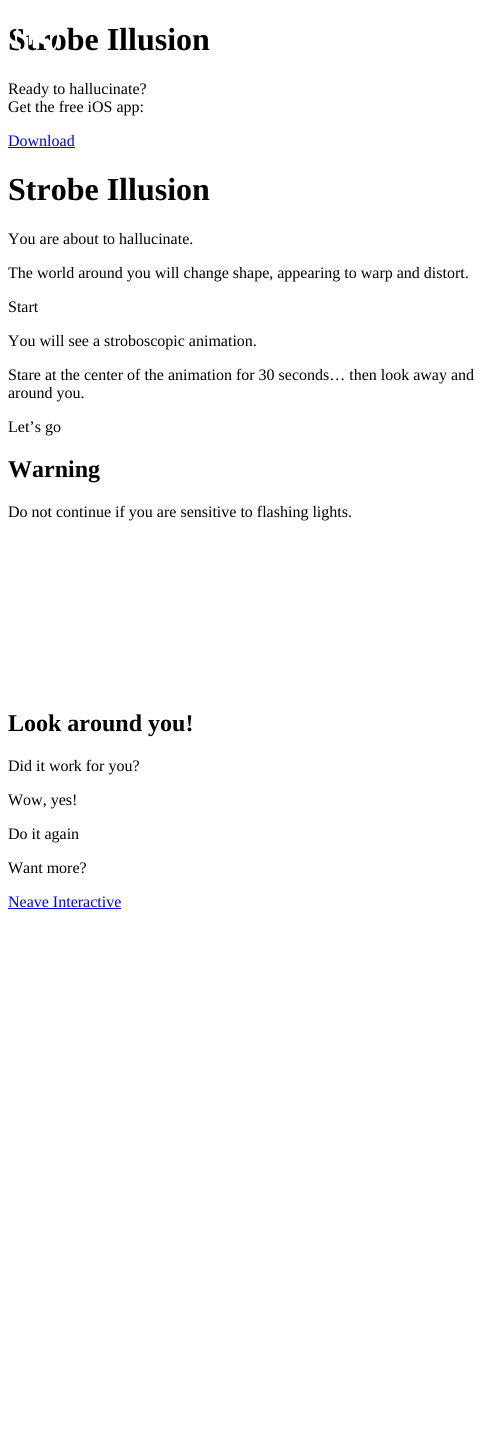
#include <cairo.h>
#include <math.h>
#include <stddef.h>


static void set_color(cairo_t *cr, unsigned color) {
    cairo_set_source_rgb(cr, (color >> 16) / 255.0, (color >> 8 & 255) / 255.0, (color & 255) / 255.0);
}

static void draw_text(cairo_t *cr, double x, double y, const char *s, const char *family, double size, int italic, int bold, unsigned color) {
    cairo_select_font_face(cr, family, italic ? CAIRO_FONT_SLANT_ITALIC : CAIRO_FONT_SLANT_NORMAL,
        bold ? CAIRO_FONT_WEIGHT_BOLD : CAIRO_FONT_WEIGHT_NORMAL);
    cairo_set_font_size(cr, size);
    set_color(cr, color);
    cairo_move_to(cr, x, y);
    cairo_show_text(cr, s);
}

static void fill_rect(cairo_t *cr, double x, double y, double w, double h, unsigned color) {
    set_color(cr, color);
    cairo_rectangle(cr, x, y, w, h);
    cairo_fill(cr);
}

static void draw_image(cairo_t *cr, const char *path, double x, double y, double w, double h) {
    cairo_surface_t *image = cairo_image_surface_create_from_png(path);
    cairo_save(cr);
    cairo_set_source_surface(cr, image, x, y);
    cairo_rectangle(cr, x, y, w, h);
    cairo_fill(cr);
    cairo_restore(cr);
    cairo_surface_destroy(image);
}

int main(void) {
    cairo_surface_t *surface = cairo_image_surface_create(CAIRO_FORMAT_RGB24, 496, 1440);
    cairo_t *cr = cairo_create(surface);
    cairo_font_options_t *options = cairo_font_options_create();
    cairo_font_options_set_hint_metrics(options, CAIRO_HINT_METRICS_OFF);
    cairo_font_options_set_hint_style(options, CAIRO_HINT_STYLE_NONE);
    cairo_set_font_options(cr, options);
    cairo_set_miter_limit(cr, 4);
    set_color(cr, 0xFFFFFF);
    cairo_paint(cr);
    draw_text(cr, 8, 50, "Strobe Illusion", "Liberation Serif", 32, 0, 1, 0x000000);
    cairo_new_path(cr);
    cairo_arc(cr, 37, 37, 21, 0, 2 * M_PI);
    set_color(cr, 0xFFFFFF);
    cairo_stroke(cr);
    draw_image(cr, "assets/img1.png", 28, 32, 18, 14);
    draw_text(cr, 8, 94, "Ready to hallucinate?", "Liberation Serif", 16, 0, 0, 0x000000);
    draw_text(cr, 8, 112, "Get the free iOS app:", "Liberation Serif", 16, 0, 0, 0x000000);
    draw_text(cr, 8, 146, "Download", "Liberation Serif", 16, 0, 0, 0x0000EE);
    fill_rect(cr, 8, 147, 67, 1, 0x0000EE);
    draw_text(cr, 8, 200, "Strobe Illusion", "Liberation Serif", 32, 0, 1, 0x000000);
    draw_text(cr, 8, 244, "You are about to hallucinate.", "Liberation Serif", 16, 0, 0, 0x000000);
    draw_text(cr, 8, 278, "The world around you will change shape, appearing to warp and distort.", "Liberation Serif", 16, 0, 0, 0x000000);
    draw_text(cr, 8, 312, "Start", "Liberation Serif", 16, 0, 0, 0x000000);
    draw_text(cr, 8, 346, "You will see a stroboscopic animation.", "Liberation Serif", 16, 0, 0, 0x000000);
    draw_text(cr, 8, 380, "Stare at the center of the animation for 30 seconds… then look away and", "Liberation Serif", 16, 0, 0, 0x000000);
    draw_text(cr, 8, 398, "around you.", "Liberation Serif", 16, 0, 0, 0x000000);
    draw_text(cr, 8, 432, "Let’s go", "Liberation Serif", 16, 0, 0, 0x000000);
    draw_text(cr, 8, 477, "Warning", "Liberation Serif", 24, 0, 1, 0x000000);
    draw_text(cr, 8, 517, "Do not continue if you are sensitive to flashing lights.", "Liberation Serif", 16, 0, 0, 0x000000);
    draw_text(cr, 8, 731, "Look around you!", "Liberation Serif", 24, 0, 1, 0x000000);
    draw_text(cr, 8, 771, "Did it work for you?", "Liberation Serif", 16, 0, 0, 0x000000);
    draw_text(cr, 8, 805, "Wow, yes!", "Liberation Serif", 16, 0, 0, 0x000000);
    draw_text(cr, 8, 839, "Do it again", "Liberation Serif", 16, 0, 0, 0x000000);
    draw_text(cr, 8, 873, "Want more?", "Liberation Serif", 16, 0, 0, 0x000000);
    draw_text(cr, 8, 907, "Neave Interactive", "Liberation Serif", 16, 0, 0, 0x0000EE);
    fill_rect(cr, 8, 908, 113, 1, 0x0000EE);
    cairo_surface_write_to_png(surface, "output.png");
    cairo_font_options_destroy(options);
    cairo_destroy(cr);
    cairo_surface_destroy(surface);
    return 0;
}
